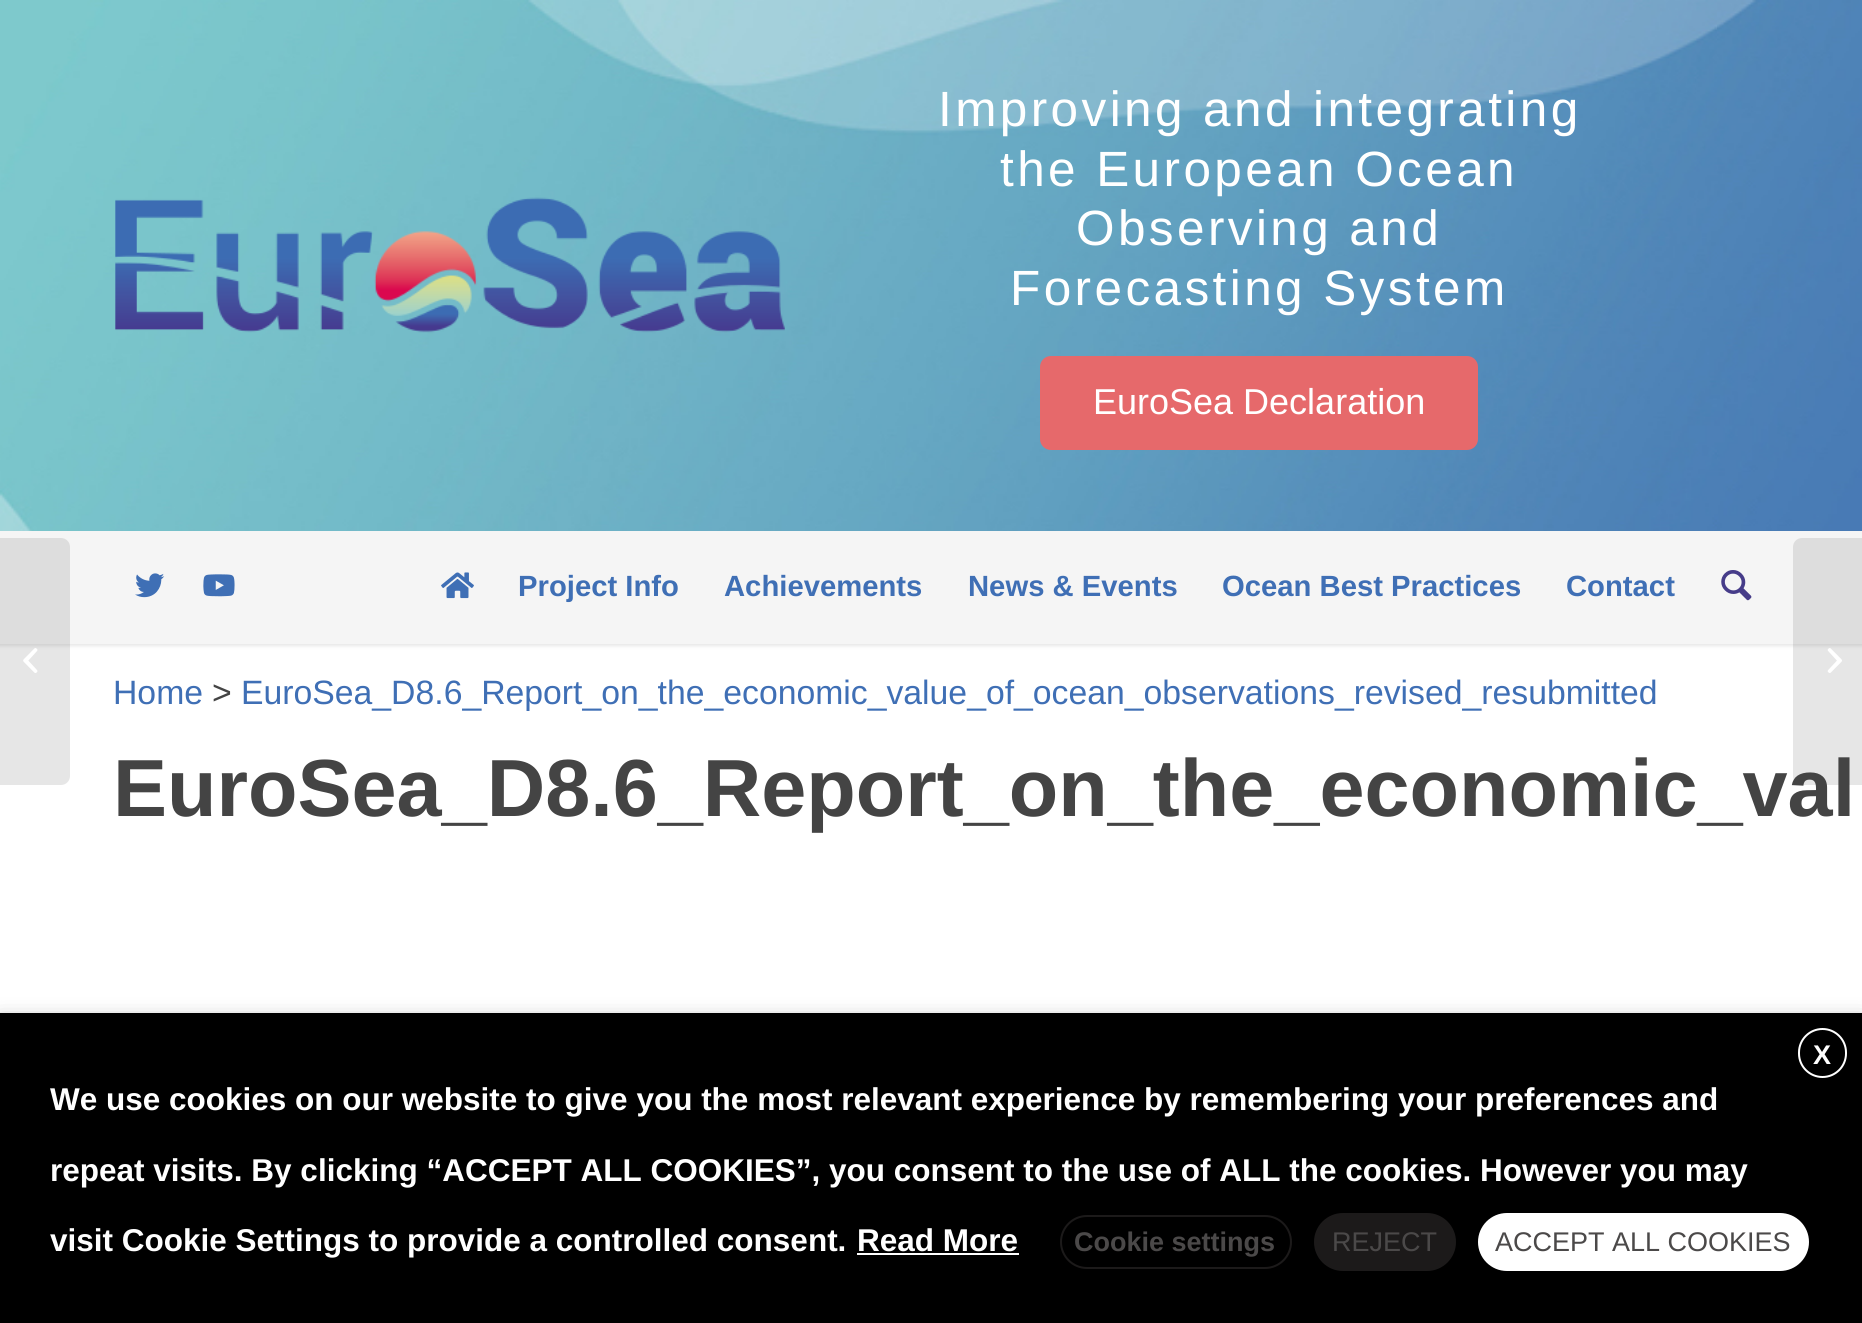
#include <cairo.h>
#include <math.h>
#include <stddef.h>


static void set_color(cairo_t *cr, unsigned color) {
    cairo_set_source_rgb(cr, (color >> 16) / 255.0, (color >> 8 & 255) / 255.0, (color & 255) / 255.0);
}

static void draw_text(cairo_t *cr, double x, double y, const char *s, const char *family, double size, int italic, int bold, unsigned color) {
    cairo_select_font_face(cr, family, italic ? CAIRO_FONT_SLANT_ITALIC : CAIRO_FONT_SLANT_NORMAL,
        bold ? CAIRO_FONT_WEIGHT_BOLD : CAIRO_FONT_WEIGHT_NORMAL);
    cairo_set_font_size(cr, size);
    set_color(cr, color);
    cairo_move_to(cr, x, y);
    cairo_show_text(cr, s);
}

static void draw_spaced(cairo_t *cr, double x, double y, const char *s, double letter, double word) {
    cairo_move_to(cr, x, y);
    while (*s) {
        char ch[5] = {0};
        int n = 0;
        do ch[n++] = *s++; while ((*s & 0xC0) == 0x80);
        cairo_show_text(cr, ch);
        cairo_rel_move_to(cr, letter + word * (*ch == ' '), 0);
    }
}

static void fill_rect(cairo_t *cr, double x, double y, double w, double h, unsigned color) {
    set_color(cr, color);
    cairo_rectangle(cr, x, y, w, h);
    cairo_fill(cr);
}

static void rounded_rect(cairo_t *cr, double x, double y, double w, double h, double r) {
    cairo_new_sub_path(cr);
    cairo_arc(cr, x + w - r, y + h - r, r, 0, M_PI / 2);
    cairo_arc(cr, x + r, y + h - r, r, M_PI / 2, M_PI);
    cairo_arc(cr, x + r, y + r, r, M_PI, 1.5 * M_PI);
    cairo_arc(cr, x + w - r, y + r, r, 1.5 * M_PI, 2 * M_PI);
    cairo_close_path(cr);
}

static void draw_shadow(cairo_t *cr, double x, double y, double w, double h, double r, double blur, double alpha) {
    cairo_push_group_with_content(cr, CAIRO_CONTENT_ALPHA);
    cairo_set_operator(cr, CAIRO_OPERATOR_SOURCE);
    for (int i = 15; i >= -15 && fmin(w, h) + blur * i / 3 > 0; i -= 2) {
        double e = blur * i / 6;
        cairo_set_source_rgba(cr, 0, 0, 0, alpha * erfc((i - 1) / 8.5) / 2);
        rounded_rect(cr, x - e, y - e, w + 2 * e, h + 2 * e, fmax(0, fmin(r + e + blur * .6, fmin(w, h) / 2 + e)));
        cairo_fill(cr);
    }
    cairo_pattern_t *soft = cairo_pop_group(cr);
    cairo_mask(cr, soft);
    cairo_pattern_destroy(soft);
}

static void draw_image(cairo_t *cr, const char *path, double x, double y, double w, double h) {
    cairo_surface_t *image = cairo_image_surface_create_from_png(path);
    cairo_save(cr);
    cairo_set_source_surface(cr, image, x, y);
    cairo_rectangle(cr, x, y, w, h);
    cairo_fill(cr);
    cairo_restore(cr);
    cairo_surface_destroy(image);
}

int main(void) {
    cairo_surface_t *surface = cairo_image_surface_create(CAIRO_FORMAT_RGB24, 1862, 1323);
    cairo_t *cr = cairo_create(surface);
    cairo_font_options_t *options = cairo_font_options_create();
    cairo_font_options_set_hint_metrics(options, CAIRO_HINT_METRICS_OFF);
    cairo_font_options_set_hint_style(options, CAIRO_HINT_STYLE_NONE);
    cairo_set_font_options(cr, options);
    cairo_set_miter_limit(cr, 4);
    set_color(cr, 0xFFFFFF);
    cairo_paint(cr);
    set_color(cr, 0x000000);
    draw_shadow(cr, -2, -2, 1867, 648, 0, 2, 0.1);
    draw_image(cr, "assets/img1.png", 0, 0, 1862, 531);
    draw_image(cr, "assets/img2.png", 115, 197, 670, 136);
    cairo_select_font_face(cr, "Liberation Sans", CAIRO_FONT_SLANT_NORMAL, CAIRO_FONT_WEIGHT_NORMAL);
    cairo_set_font_size(cr, 49.5);
    set_color(cr, 0xFFFFFF);
    draw_spaced(cr, 938, 126, "Improving and integrating", 3.4, 0);
    draw_spaced(cr, 1000, 186, "the European Ocean", 3.4, 0);
    draw_spaced(cr, 1076, 245, "Observing and", 3.4, 0);
    draw_spaced(cr, 1010, 305, "Forecasting System", 3.4, 0);
    set_color(cr, 0xE6696B);
    rounded_rect(cr, 1040, 356, 438, 94, 11);
    cairo_fill(cr);
    draw_text(cr, 1093, 414, "EuroSea Declaration", "Liberation Sans", 36, 0, 0, 0xFFFFFF);
    fill_rect(cr, 0, 531, 1862, 113, 0xF5F5F5);
    draw_image(cr, "assets/img3.png", 135, 573, 30, 25);
    draw_image(cr, "assets/img4.png", 203, 574, 32, 23);
    draw_image(cr, "assets/img5.png", 441, 572, 33, 27);
    draw_text(cr, 518, 596, "Project Info", "Liberation Sans", 29.25, 0, 1, 0x3F6FB5);
    draw_text(cr, 724, 596, "Achievements", "Liberation Sans", 29.25, 0, 1, 0x3F6FB5);
    draw_text(cr, 968, 596, "News & Events", "Liberation Sans", 29.25, 0, 1, 0x3F6FB5);
    draw_text(cr, 1222, 596, "Ocean Best Practices", "Liberation Sans", 29.25, 0, 1, 0x3F6FB5);
    draw_text(cr, 1566, 596, "Contact", "Liberation Sans", 29.25, 0, 1, 0x3F6FB5);
    draw_image(cr, "assets/img6.png", 1721, 570, 31, 31);
    cairo_set_source_rgba(cr, 0, 0, 0, 0.1);
    cairo_new_path(cr);
    cairo_move_to(cr, 0, 538);
    cairo_line_to(cr, 61, 538);
    cairo_curve_to(cr, 66, 538, 70, 542, 70, 547);
    cairo_line_to(cr, 70, 776);
    cairo_curve_to(cr, 70, 781, 66, 785, 61, 785);
    cairo_line_to(cr, 0, 785);
    cairo_close_path(cr);
    cairo_fill(cr);
    draw_image(cr, "assets/img7.png", 23, 648, 15, 25);
    cairo_new_path(cr);
    cairo_move_to(cr, 1802, 538);
    cairo_line_to(cr, 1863, 538);
    cairo_line_to(cr, 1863, 785);
    cairo_line_to(cr, 1802, 785);
    cairo_curve_to(cr, 1797, 785, 1793, 781, 1793, 776);
    cairo_line_to(cr, 1793, 547);
    cairo_curve_to(cr, 1793, 542, 1797, 538, 1802, 538);
    cairo_close_path(cr);
    cairo_fill(cr);
    draw_image(cr, "assets/img8.png", 1827, 648, 15, 25);
    draw_text(cr, 113, 704, "Home", "Liberation Sans", 33.75, 0, 0, 0x3F6FB5);
    draw_text(cr, 212, 704, ">", "Liberation Sans", 33.75, 0, 0, 0x444444);
    draw_text(cr, 241, 704, "EuroSea_D8.6_Report_on_the_economic_value_of_ocean_observations_revised_resubmitted", "Liberation Sans", 33.75, 0, 0, 0x3F6FB5);
    draw_text(cr, 113, 816, "EuroSea_D8.6_Report_on_the_economic_val", "Liberation Sans", 81, 0, 1, 0x444444);
    set_color(cr, 0x000000);
    draw_shadow(cr, 0, 1024, 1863, 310, 0, 11, 0.5);
    fill_rect(cr, 0, 1013, 1862, 310, 0x000000);
    rounded_rect(cr, 1799, 1029, 47, 48, 23.5);
    set_color(cr, 0xFFFFFF);
    cairo_stroke(cr);
    draw_text(cr, 1813, 1064, "X", "Liberation Sans", 27, 0, 1, 0xFFFFFF);
    draw_text(cr, 50, 1110, "We use cookies on our website to give you the most relevant experience by remembering your preferences and", "Liberation Sans", 31.5, 0, 1, 0xFFFFFF);
    draw_text(cr, 50, 1181, "repeat visits. By clicking “ACCEPT ALL COOKIES”, you consent to the use of ALL the cookies. However you may", "Liberation Sans", 31.5, 0, 1, 0xFFFFFF);
    draw_text(cr, 50, 1251, "visit Cookie Settings to provide a controlled consent.", "Liberation Sans", 31.5, 0, 1, 0xFFFFFF);
    draw_text(cr, 857, 1251, "Read More", "Liberation Sans", 31.5, 0, 1, 0xFFFFFF);
    fill_rect(cr, 857, 1253, 162, 2, 0xFFFFFF);
    rounded_rect(cr, 1061, 1216, 230, 52, 26);
    set_color(cr, 0x1C1A1A);
    cairo_stroke(cr);
    draw_text(cr, 1074, 1251, "Cookie settings", "Liberation Sans", 27, 0, 1, 0x4B4949);
    set_color(cr, 0x1C1A1A);
    rounded_rect(cr, 1314, 1213, 142, 58, 29);
    cairo_fill(cr);
    draw_text(cr, 1332, 1251, "REJECT", "Liberation Sans", 27, 0, 0, 0x4B4949);
    set_color(cr, 0xFFFFFF);
    rounded_rect(cr, 1478, 1213, 331, 58, 29);
    cairo_fill(cr);
    draw_text(cr, 1495, 1251, "ACCEPT ALL COOKIES", "Liberation Sans", 27, 0, 0, 0x4B4949);
    cairo_surface_write_to_png(surface, "output.png");
    cairo_font_options_destroy(options);
    cairo_destroy(cr);
    cairo_surface_destroy(surface);
    return 0;
}
